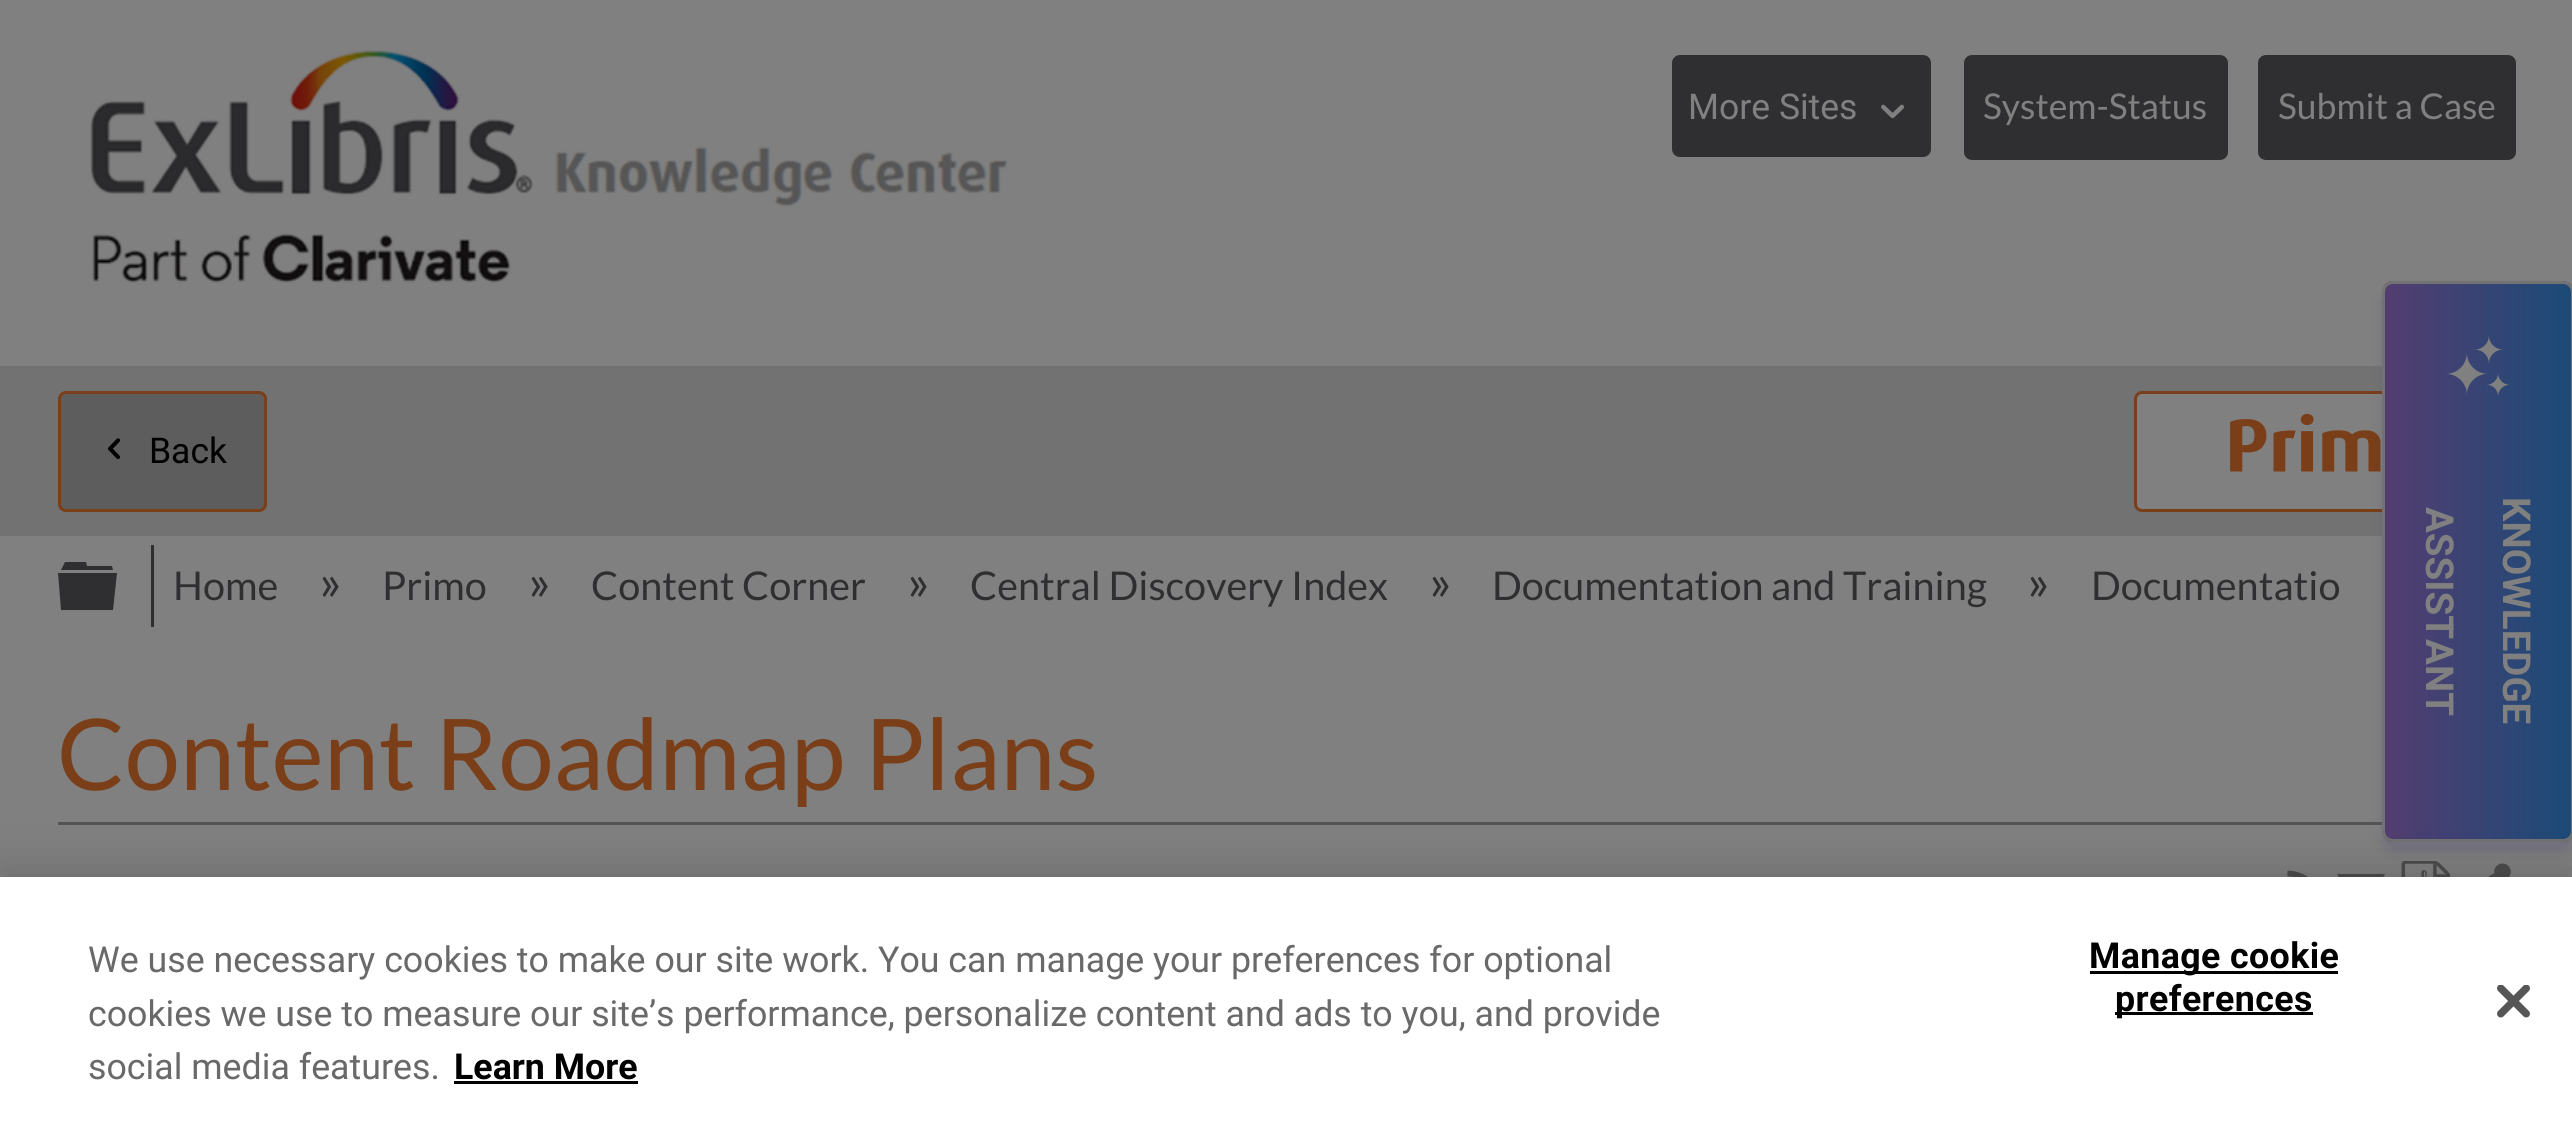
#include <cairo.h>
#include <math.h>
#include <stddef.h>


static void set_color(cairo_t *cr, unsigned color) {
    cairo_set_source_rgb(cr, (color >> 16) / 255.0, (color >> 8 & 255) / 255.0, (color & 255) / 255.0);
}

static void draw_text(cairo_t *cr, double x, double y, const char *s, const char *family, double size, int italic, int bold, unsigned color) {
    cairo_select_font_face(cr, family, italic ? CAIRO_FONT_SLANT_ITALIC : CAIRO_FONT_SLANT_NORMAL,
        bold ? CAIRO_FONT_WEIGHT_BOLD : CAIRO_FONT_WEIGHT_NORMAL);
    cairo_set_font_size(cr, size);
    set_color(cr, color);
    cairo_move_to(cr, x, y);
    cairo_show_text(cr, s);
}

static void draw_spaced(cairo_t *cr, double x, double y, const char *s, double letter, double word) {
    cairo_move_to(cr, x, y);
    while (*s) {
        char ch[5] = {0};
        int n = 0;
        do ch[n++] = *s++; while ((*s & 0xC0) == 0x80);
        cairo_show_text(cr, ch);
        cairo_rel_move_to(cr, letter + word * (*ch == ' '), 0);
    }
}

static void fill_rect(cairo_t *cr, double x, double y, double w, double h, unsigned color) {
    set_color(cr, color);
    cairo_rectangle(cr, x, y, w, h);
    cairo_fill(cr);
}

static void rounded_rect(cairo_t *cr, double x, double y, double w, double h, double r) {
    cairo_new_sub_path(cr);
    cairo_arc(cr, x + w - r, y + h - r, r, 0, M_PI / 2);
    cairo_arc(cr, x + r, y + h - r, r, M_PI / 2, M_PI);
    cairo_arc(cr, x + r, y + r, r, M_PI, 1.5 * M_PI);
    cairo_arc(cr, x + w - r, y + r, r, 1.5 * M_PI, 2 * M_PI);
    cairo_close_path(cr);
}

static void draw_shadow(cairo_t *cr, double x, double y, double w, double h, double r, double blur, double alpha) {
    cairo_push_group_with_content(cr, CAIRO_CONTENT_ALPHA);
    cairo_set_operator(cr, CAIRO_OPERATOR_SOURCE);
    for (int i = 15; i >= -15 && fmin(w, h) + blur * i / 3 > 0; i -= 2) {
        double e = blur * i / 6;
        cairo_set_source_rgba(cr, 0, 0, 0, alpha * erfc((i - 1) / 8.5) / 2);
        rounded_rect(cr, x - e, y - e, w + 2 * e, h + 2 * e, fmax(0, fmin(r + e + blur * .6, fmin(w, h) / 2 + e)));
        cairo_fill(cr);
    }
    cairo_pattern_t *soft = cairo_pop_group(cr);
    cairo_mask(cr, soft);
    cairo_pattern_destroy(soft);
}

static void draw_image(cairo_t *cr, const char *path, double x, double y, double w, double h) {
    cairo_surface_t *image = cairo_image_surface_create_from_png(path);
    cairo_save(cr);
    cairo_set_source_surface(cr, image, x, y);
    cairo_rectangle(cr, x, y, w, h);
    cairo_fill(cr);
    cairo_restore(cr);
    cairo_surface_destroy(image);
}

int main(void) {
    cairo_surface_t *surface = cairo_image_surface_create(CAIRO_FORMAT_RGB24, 2572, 1121);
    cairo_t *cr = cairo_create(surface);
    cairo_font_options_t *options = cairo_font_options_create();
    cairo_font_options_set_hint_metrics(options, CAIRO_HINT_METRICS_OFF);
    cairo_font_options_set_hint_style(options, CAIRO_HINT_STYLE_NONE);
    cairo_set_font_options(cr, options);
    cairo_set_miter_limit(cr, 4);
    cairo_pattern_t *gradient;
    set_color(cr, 0x808080);
    cairo_paint(cr);
    fill_rect(cr, 0, 366, 2382, 170, 0x727272);
    set_color(cr, 0x5D5D5D);
    rounded_rect(cr, 59.5, 392.5, 206, 118, 6.5);
    cairo_fill_preserve(cr);
    set_color(cr, 0x7A3E18);
    cairo_set_line_width(cr, 3);
    cairo_stroke(cr);
    draw_image(cr, "assets/img1.png", 108, 438, 13, 21);
    draw_text(cr, 149, 463, "Back", "Roboto", 35.5, 0, 0, 0x000000);
    set_color(cr, 0x808080);
    rounded_rect(cr, 2135.5, 392.5, 379, 118, 6.5);
    cairo_fill_preserve(cr);
    set_color(cr, 0x7A3E18);
    cairo_stroke(cr);
    draw_image(cr, "assets/img2.png", 2230, 414, 151, 58);
    draw_image(cr, "assets/img3.png", 90, 50, 918, 233);
    set_color(cr, 0x2F2E31);
    rounded_rect(cr, 1673.5, 56.5, 256, 99, 6.5);
    cairo_fill_preserve(cr);
    cairo_stroke(cr);
    draw_text(cr, 1688, 119, "More Sites", "Roboto", 35.5, 0, 0, 0x808080);
    draw_image(cr, "assets/img4.png", 1881, 104, 23, 15);
    set_color(cr, 0x2F2E31);
    rounded_rect(cr, 1965.5, 56.5, 261, 102, 6.5);
    cairo_fill_preserve(cr);
    cairo_stroke(cr);
    draw_text(cr, 1983, 119, "System-Status", "Lato", 35.5, 0, 0, 0x808080);
    set_color(cr, 0x2F2E31);
    rounded_rect(cr, 2259.5, 56.5, 255, 102, 6.5);
    cairo_fill_preserve(cr);
    cairo_stroke(cr);
    draw_text(cr, 2278, 119, "Submit a Case", "Lato", 35.5, 0, 0, 0x808080);
    fill_rect(cr, 58, 822, 2324, 3, 0x545454);
    draw_image(cr, "assets/img8.png", 2401, 861, 49, 16);
    draw_image(cr, "assets/img9.png", 2488, 863, 23, 14);
    set_color(cr, 0x423C73);
    draw_shadow(cr, 2382, 292, 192, 561, 11, 5.5, 0.2);
    cairo_save(cr);
    rounded_rect(cr, 2382, 281, 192, 561, 11);
    cairo_clip(cr);
    gradient = cairo_pattern_create_linear(2384, 561, 2571, 561);
    cairo_pattern_add_color_stop_rgba(gradient, 0, 0.329, 0.239, 0.439, 1);
    cairo_pattern_add_color_stop_rgba(gradient, 1, 0.106, 0.294, 0.471, 1);
    cairo_set_source(cr, gradient);
    cairo_pattern_destroy(gradient);
    cairo_rectangle(cr, 2384, 281, 187, 561);
    cairo_fill(cr);
    cairo_restore(cr);
    rounded_rect(cr, 2383.5, 282.5, 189, 558, 9.5);
    set_color(cr, 0x727272);
    cairo_stroke(cr);
    draw_image(cr, "assets/img5.png", 2446, 336, 64, 60);
    cairo_save(cr);
    cairo_translate(cr, 2426, 507);
    cairo_rotate(cr, 90 * M_PI / 180);
    draw_text(cr, 0, 0, "ASSISTANT", "Roboto", 38.5, 0, 1, 0x808080);
    cairo_restore(cr);
    cairo_save(cr);
    cairo_translate(cr, 2503, 497);
    cairo_rotate(cr, 90 * M_PI / 180);
    draw_text(cr, 0, 0, "KNOWLEDGE", "Roboto", 38.5, 0, 1, 0x808080);
    cairo_restore(cr);
    set_color(cr, 0x2F2E31);
    cairo_set_fill_rule(cr, CAIRO_FILL_RULE_EVEN_ODD);
    cairo_new_path(cr);
    cairo_move_to(cr, 58, 573);
    cairo_line_to(cr, 61, 610);
    cairo_line_to(cr, 113, 610);
    cairo_line_to(cr, 117, 573);
    cairo_close_path(cr);
    cairo_move_to(cr, 112, 566);
    cairo_line_to(cr, 87, 566);
    cairo_line_to(cr, 86, 562);
    cairo_line_to(cr, 65, 562);
    cairo_line_to(cr, 61, 570);
    cairo_line_to(cr, 113, 570);
    cairo_close_path(cr);
    cairo_fill(cr);
    fill_rect(cr, 151, 545, 3, 82, 0x2F2E31);
    draw_text(cr, 173, 600, "Home", "Lato", 39.6, 0, 0, 0x2F2E31);
    draw_text(cr, 319, 600, "»", "Lato", 50, 0, 0, 0x2F2E31);
    draw_text(cr, 382, 600, "Primo", "Lato", 39.6, 0, 0, 0x2F2E31);
    draw_text(cr, 528, 600, "»", "Lato", 50, 0, 0, 0x2F2E31);
    draw_text(cr, 591, 600, "Content Corner", "Lato", 39.6, 0, 0, 0x2F2E31);
    draw_text(cr, 907, 600, "»", "Lato", 50, 0, 0, 0x2F2E31);
    draw_text(cr, 970, 600, "Central Discovery Index", "Lato", 39.6, 0, 0, 0x2F2E31);
    draw_text(cr, 1429, 600, "»", "Lato", 50, 0, 0, 0x2F2E31);
    draw_text(cr, 1492, 600, "Documentation and Training", "Lato", 39.6, 0, 0, 0x2F2E31);
    draw_text(cr, 2027, 600, "»", "Lato", 50, 0, 0, 0x2F2E31);
    draw_text(cr, 2091, 600, "Documentatio", "Lato", 39.6, 0, 0, 0x2F2E31);
    draw_text(cr, 57, 790, "Content Roadmap Plans", "Lato", 99, 0, 0, 0x7A3E18);
    draw_image(cr, "assets/img6.png", 2287, 870, 21, 7);
    draw_image(cr, "assets/img7.png", 2337, 874, 48, 3);
    set_color(cr, 0x000000);
    draw_shadow(cr, 0, 877, 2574, 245, 0, 25, 0.2);
    fill_rect(cr, 0, 877, 2572, 244, 0xFFFFFF);
    draw_text(cr, 88, 972, "We use necessary cookies to make our site work. You can manage your preferences for optional", "Roboto", 35.75, 0, 0, 0x696969);
    draw_text(cr, 88, 1026, "cookies we use to measure our site’s performance, personalize content and ads to you, and provide", "Roboto", 35.75, 0, 0, 0x696969);
    draw_text(cr, 88, 1079, "social media features.", "Roboto", 35.75, 0, 0, 0x696969);
    draw_text(cr, 454, 1079, "Learn More", "Roboto", 35.75, 0, 1, 0x000000);
    fill_rect(cr, 454, 1081, 184, 3, 0x000000);
    fill_rect(cr, 2090, 971, 248, 3, 0x000000);
    draw_spaced(cr, 2089, 968, "Manage cookie", 0.4, 0);
    fill_rect(cr, 2115, 1012, 198, 3, 0x000000);
    draw_spaced(cr, 2115, 1011, "preferences", 0.4, 0);
    draw_image(cr, "assets/img10.png", 2497, 985, 33, 33);
    cairo_surface_write_to_png(surface, "output.png");
    cairo_font_options_destroy(options);
    cairo_destroy(cr);
    cairo_surface_destroy(surface);
    return 0;
}
